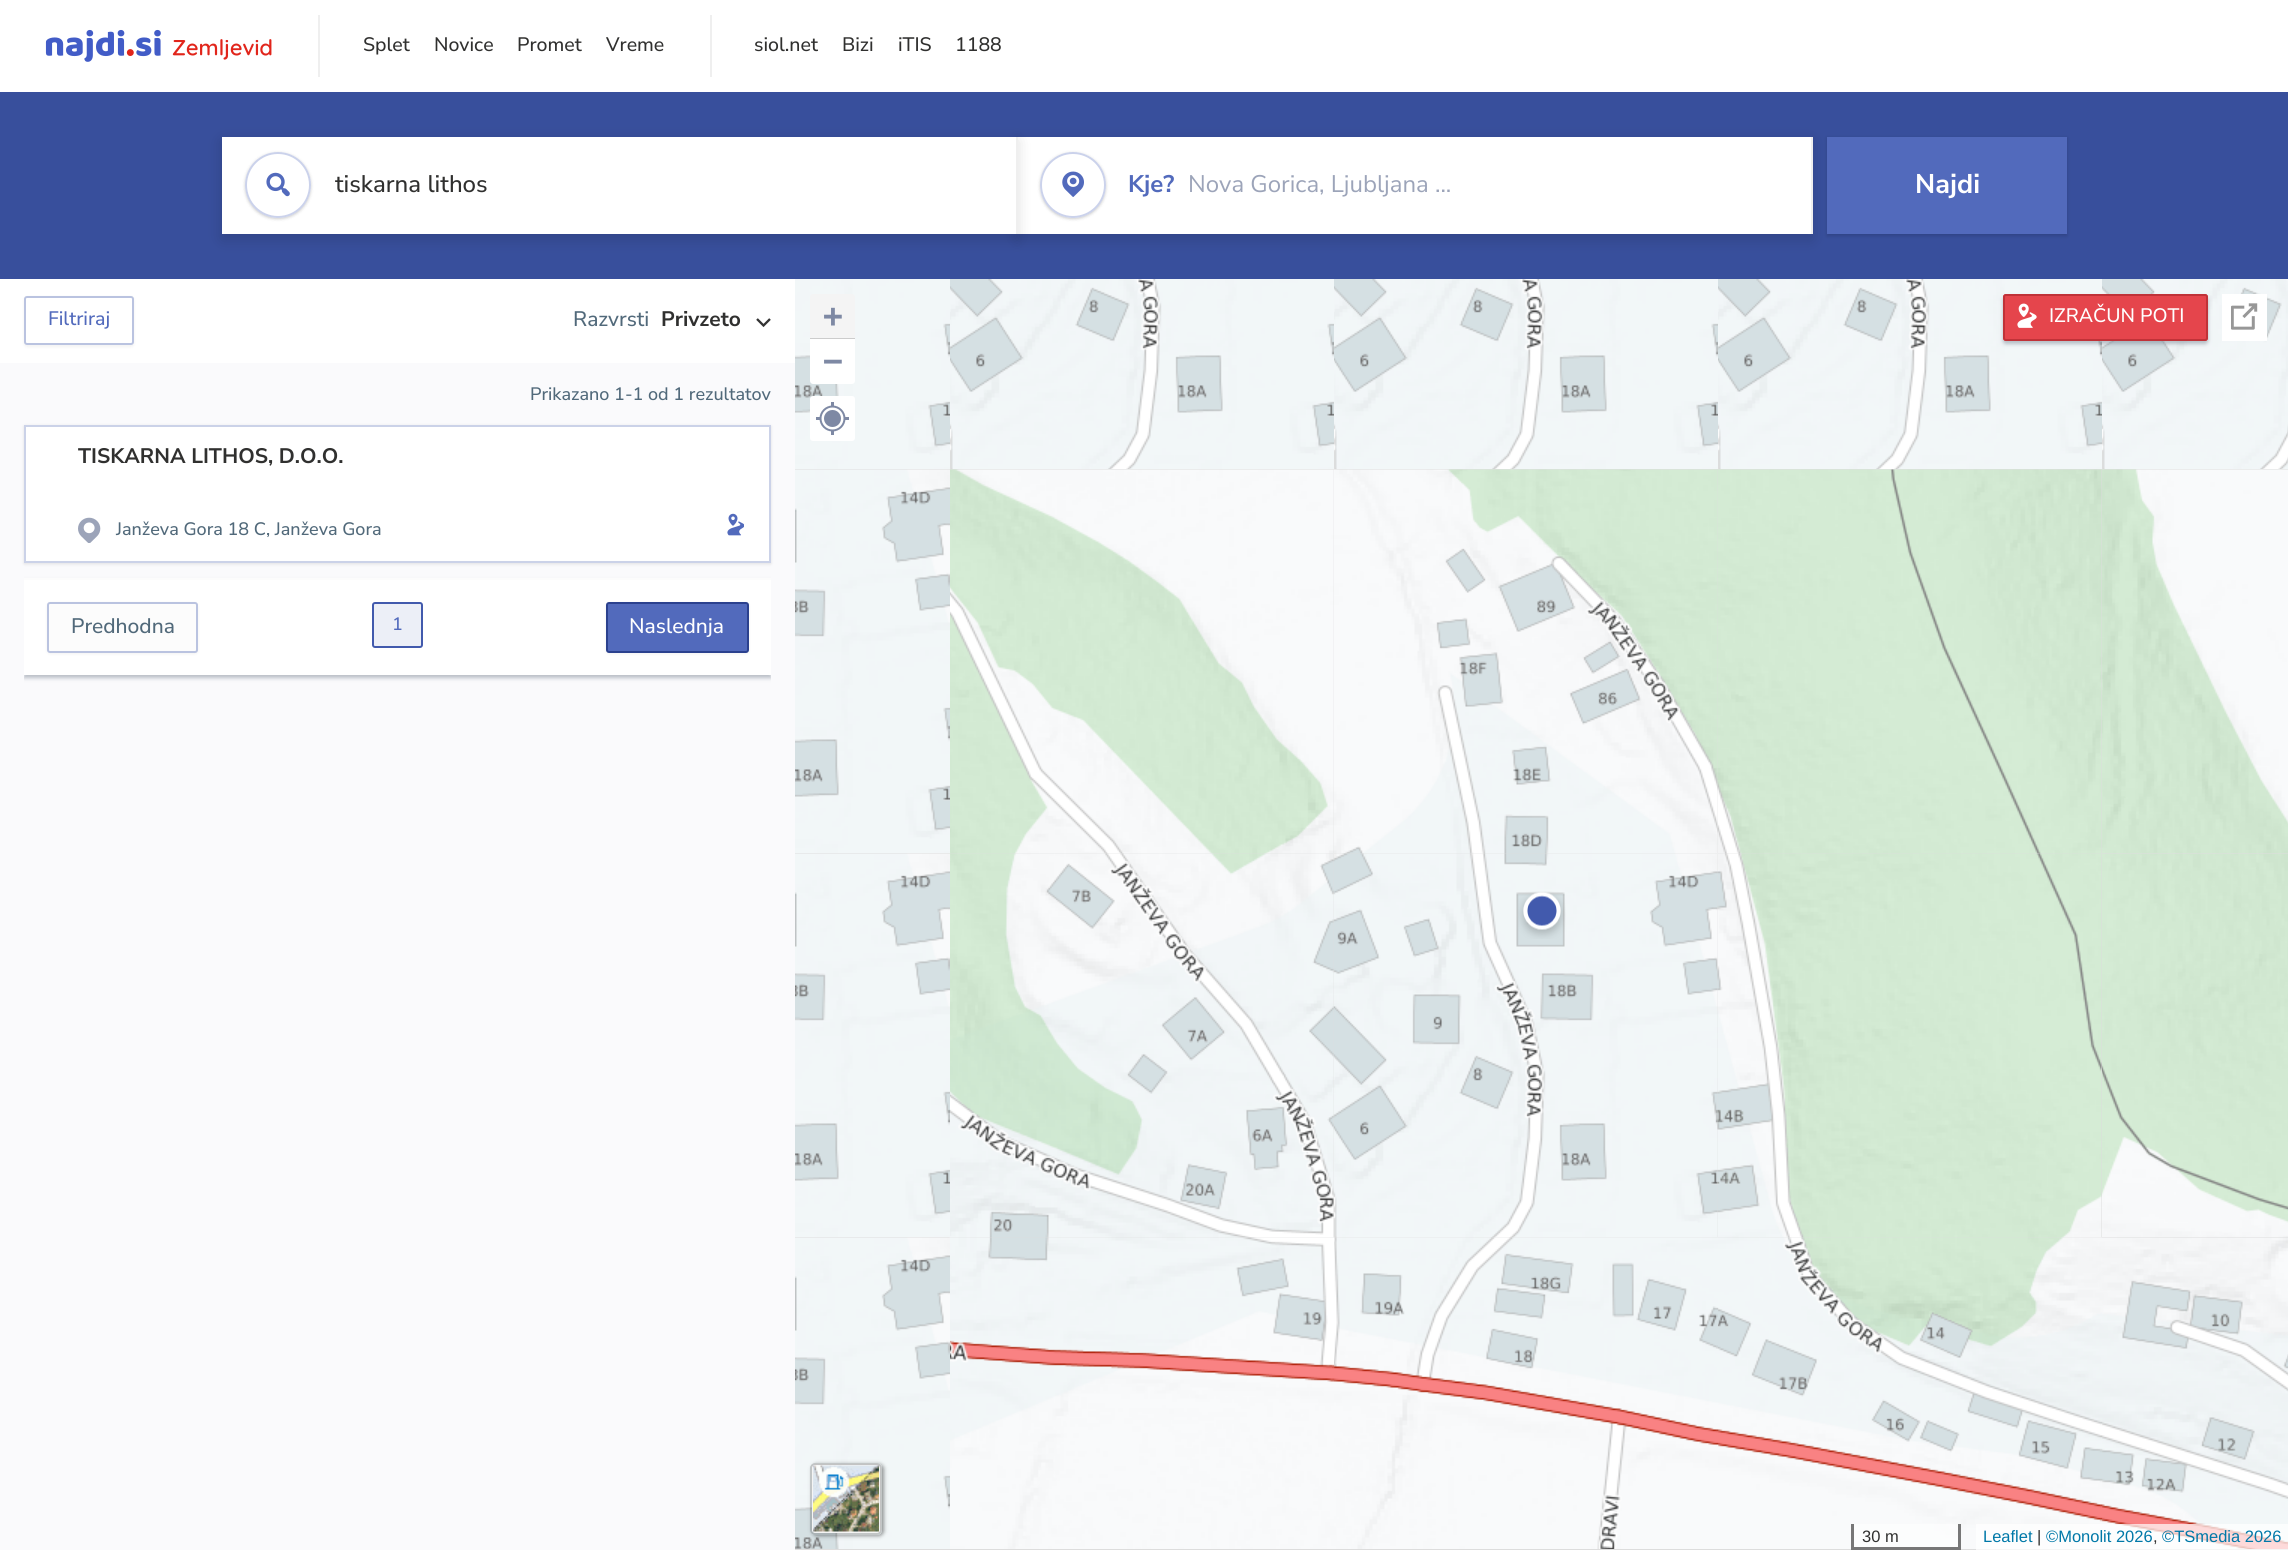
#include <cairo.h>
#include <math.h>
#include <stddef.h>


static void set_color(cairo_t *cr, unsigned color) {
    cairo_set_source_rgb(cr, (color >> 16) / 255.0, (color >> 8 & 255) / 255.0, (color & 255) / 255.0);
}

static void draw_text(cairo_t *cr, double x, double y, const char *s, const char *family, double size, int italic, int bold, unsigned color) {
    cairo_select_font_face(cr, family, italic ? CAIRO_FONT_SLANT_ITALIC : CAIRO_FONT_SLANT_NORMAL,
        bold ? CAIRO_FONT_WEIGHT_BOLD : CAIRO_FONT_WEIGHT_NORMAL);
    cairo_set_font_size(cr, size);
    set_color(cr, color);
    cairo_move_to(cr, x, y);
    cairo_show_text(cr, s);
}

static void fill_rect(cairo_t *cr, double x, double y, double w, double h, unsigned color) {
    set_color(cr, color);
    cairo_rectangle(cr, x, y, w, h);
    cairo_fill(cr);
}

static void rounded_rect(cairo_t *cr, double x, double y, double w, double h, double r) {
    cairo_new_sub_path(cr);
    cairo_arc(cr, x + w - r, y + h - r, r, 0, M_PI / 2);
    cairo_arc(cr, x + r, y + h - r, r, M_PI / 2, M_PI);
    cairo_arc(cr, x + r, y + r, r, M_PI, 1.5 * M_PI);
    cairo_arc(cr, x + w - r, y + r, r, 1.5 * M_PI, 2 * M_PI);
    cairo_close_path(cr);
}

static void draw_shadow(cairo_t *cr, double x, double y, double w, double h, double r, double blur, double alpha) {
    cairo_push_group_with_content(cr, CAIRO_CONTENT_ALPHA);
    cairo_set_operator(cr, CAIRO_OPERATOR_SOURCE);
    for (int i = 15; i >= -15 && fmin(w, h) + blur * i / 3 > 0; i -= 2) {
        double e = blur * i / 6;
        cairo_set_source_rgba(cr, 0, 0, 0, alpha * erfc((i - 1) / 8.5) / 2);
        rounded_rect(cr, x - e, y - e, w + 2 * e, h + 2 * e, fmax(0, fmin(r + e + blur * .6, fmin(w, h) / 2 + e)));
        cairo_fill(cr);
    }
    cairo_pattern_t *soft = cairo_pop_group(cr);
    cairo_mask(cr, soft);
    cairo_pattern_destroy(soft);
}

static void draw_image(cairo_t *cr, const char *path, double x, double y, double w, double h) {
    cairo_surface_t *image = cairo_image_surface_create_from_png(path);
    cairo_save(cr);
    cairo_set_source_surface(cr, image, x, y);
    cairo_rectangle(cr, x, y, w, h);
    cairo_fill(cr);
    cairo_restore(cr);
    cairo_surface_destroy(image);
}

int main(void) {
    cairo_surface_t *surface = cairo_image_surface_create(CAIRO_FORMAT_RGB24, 2288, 1551);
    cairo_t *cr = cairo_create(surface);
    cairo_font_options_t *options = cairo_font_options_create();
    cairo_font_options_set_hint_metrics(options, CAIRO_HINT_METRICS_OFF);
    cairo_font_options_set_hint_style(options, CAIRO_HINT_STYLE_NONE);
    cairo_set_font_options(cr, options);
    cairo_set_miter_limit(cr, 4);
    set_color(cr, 0xFFFFFF);
    cairo_paint(cr);
    draw_image(cr, "assets/img1.png", 45, 29, 227, 33);
    fill_rect(cr, 318, 15, 2, 62, 0xEFEFEF);
    draw_text(cr, 363, 51, "Splet", "Nunito Sans Medium", 19.5, 0, 0, 0x30302F);
    draw_text(cr, 434, 51, "Novice", "Nunito Sans Medium", 19.5, 0, 0, 0x30302F);
    draw_text(cr, 517, 51, "Promet", "Nunito Sans Medium", 19.5, 0, 0, 0x30302F);
    draw_text(cr, 606, 51, "Vreme", "Nunito Sans Medium", 19.5, 0, 0, 0x30302F);
    fill_rect(cr, 710, 15, 2, 62, 0xEFEFEF);
    draw_text(cr, 754, 51, "siol.net", "Nunito Sans Medium", 19.5, 0, 0, 0x30302F);
    draw_text(cr, 842, 51, "Bizi", "Nunito Sans Medium", 19.5, 0, 0, 0x30302F);
    draw_text(cr, 898, 51, "iTIS", "Nunito Sans Medium", 19.5, 0, 0, 0x30302F);
    draw_text(cr, 955, 51, "1188", "Nunito Sans Medium", 19.5, 0, 0, 0x30302F);
    fill_rect(cr, 0, 92, 2288, 187, 0x384F9C);
    set_color(cr, 0x000000);
    draw_shadow(cr, 1017, 141, 795, 98, 0, 7.5, 0.15);
    fill_rect(cr, 1018, 137, 793, 97, 0xFFFFFF);
    cairo_save(cr);
    cairo_set_fill_rule(cr, CAIRO_FILL_RULE_EVEN_ODD);
    cairo_new_path(cr);
    cairo_move_to(cr, 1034, 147);
    cairo_line_to(cr, 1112, 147);
    cairo_line_to(cr, 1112, 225);
    cairo_line_to(cr, 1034, 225);
    cairo_close_path(cr);
    cairo_move_to(cr, 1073, 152);
    cairo_curve_to(cr, 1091, 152, 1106, 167, 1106, 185);
    cairo_curve_to(cr, 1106, 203, 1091, 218, 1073, 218);
    cairo_curve_to(cr, 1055, 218, 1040, 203, 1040, 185);
    cairo_curve_to(cr, 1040, 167, 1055, 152, 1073, 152);
    cairo_close_path(cr);
    cairo_clip(cr);
    set_color(cr, 0x000000);
    draw_shadow(cr, 1040, 153, 66, 66, 33, 1.5, 0.2);
    cairo_restore(cr);
    draw_image(cr, "assets/img3.png", 1062, 171, 22, 26);
    cairo_arc(cr, 1073, 185, 32, 0, 2 * M_PI);
    cairo_set_source_rgba(cr, 0.322, 0.416, 0.737, 0.3);
    cairo_stroke(cr);
    set_color(cr, 0x000000);
    draw_shadow(cr, 222, 141, 795, 98, 0, 7.5, 0.15);
    fill_rect(cr, 222, 137, 794, 97, 0xFFFFFF);
    fill_rect(cr, 1016, 137, 2, 97, 0xEFEFEF);
    cairo_save(cr);
    cairo_set_fill_rule(cr, CAIRO_FILL_RULE_EVEN_ODD);
    cairo_new_path(cr);
    cairo_move_to(cr, 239, 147);
    cairo_line_to(cr, 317, 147);
    cairo_line_to(cr, 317, 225);
    cairo_line_to(cr, 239, 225);
    cairo_close_path(cr);
    cairo_move_to(cr, 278, 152);
    cairo_curve_to(cr, 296, 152, 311, 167, 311, 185);
    cairo_curve_to(cr, 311, 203, 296, 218, 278, 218);
    cairo_curve_to(cr, 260, 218, 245, 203, 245, 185);
    cairo_curve_to(cr, 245, 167, 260, 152, 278, 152);
    cairo_close_path(cr);
    cairo_clip(cr);
    set_color(cr, 0x000000);
    draw_shadow(cr, 245, 153, 66, 66, 33, 1.5, 0.2);
    cairo_restore(cr);
    draw_image(cr, "assets/img2.png", 266, 172, 24, 25);
    cairo_arc(cr, 278, 185, 32, 0, 2 * M_PI);
    cairo_set_source_rgba(cr, 0.322, 0.416, 0.737, 0.3);
    cairo_stroke(cr);
    draw_text(cr, 335, 192, "tiskarna lithos", "Nunito Sans Medium", 24, 0, 0, 0x30302F);
    fill_rect(cr, 1811, 137, 2, 97, 0xEFEFEF);
    draw_text(cr, 1128, 192, "Kje?", "Nunito Sans", 24, 0, 1, 0x526ABC);
    draw_text(cr, 1188, 192, "Nova Gorica, Ljubljana ...", "Nunito Sans", 24, 0, 0, 0x9CA4B9);
    set_color(cr, 0x000000);
    draw_shadow(cr, 1827, 138, 240, 98, 0, 2, 0.15);
    fill_rect(cr, 1827, 137, 240, 97, 0x526ABC);
    draw_text(cr, 1915, 193, "Najdi", "Nunito Sans", 27, 0, 1, 0xFFFFFF);
    set_color(cr, 0x000000);
    draw_shadow(cr, 24, 297, 110, 50, 3, 1.5, 0.05);
    set_color(cr, 0xFFFFFF);
    rounded_rect(cr, 25, 297, 108, 47, 2);
    cairo_fill_preserve(cr);
    set_color(cr, 0xBAC3E0);
    cairo_stroke(cr);
    draw_text(cr, 48, 325, "Filtriraj", "Nunito Sans Medium", 19.5, 0, 0, 0x526ABC);
    draw_text(cr, 573, 326, "Razvrsti", "Nunito Sans Medium", 21, 0, 0, 0x51697A);
    draw_text(cr, 661, 326, "Privzeto", "Nunito Sans", 21, 0, 1, 0x30302F);
    cairo_new_path(cr);
    cairo_move_to(cr, 757, 319);
    cairo_line_to(cr, 763.5, 325.5);
    cairo_line_to(cr, 770, 319);
    set_color(cr, 0x333333);
    cairo_set_line_width(cr, 2.3);
    cairo_stroke(cr);
    fill_rect(cr, 0, 363, 795, 1187, 0xFAFAFC);
    draw_text(cr, 530, 400, "Prikazano 1-1 od 1 rezultatov", "Nunito Sans Medium", 18, 0, 0, 0x51697A);
    set_color(cr, 0x000000);
    draw_shadow(cr, 24, 426, 747, 138, 0, 1.5, 0.1);
    set_color(cr, 0xFFFFFF);
    cairo_rectangle(cr, 25, 426, 745, 136);
    cairo_fill_preserve(cr);
    set_color(cr, 0xCBD2E8);
    cairo_set_line_width(cr, 2);
    cairo_stroke(cr);
    draw_text(cr, 78, 463, "TISKARNA LITHOS, D.O.O.", "Nunito Sans", 21, 0, 1, 0x30302F);
    draw_image(cr, "assets/img4.png", 78, 517, 23, 26);
    draw_text(cr, 116, 535, "Janževa Gora 18 C, Janževa Gora", "Nunito Sans Medium", 18, 0, 0, 0x51697A);
    draw_image(cr, "assets/img5.png", 727, 513, 17, 23);
    cairo_save(cr);
    cairo_rectangle(cr, 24, 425, 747, 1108);
    cairo_clip(cr);
    set_color(cr, 0x687383);
    draw_shadow(cr, 24, 581, 747, 97, 0, 2, 0.45);
    cairo_restore(cr);
    fill_rect(cr, 24, 580, 747, 95, 0xFFFFFF);
    fill_rect(cr, 24, 578, 747, 2, 0xFCFCFC);
    set_color(cr, 0x000000);
    draw_shadow(cr, 47, 603, 151, 51, 3, 1.5, 0.05);
    set_color(cr, 0xFCFCFC);
    rounded_rect(cr, 48, 603, 149, 49, 2);
    cairo_fill_preserve(cr);
    set_color(cr, 0xBAC3E0);
    cairo_stroke(cr);
    draw_text(cr, 71, 633, "Predhodna", "Nunito Sans Medium", 21, 0, 0, 0x51697A);
    set_color(cr, 0xECEFF7);
    rounded_rect(cr, 373, 603, 49, 44, 2);
    cairo_fill_preserve(cr);
    set_color(cr, 0x425AAD);
    cairo_stroke(cr);
    draw_text(cr, 392, 630, "1", "Nunito Sans Medium", 18, 0, 0, 0x526ABC);
    set_color(cr, 0x000000);
    draw_shadow(cr, 606, 603, 143, 51, 3, 1.5, 0.05);
    set_color(cr, 0x526ABC);
    rounded_rect(cr, 607, 603, 141, 49, 2);
    cairo_fill_preserve(cr);
    set_color(cr, 0x2B418E);
    cairo_stroke(cr);
    draw_text(cr, 629, 633, "Naslednja", "Nunito Sans Medium", 21, 0, 0, 0xFFFFFF);
    draw_image(cr, "assets/img9.png", 1718, 279, 384, 190);
    draw_image(cr, "assets/img10.png", 2102, 279, 186, 190);
    set_color(cr, 0x687383);
    draw_shadow(cr, 2003, 297, 205, 47, 3, 2, 0.45);
    set_color(cr, 0xE5454C);
    rounded_rect(cr, 2003, 294, 205, 47, 3);
    cairo_fill(cr);
    draw_image(cr, "assets/img6.png", 2017, 303, 20, 25);
    rounded_rect(cr, 2004, 295, 203, 45, 2);
    set_color(cr, 0xC03238);
    cairo_stroke(cr);
    draw_text(cr, 2049, 322, "IZRAČUN POTI", "Nunito Sans Medium", 19.5, 0, 0, 0xFFFFFF);
    fill_rect(cr, 2222, 294, 45, 47, 0xFFFFFF);
    draw_image(cr, "assets/img7.png", 2231, 303, 27, 27);
    fill_rect(cr, 795, 469, 1493, 1081, 0xDDDDDD);
    draw_image(cr, "assets/img8.png", 795, 279, 155, 190);
    draw_image(cr, "assets/img9.png", 950, 279, 384, 190);
    draw_image(cr, "assets/img9.png", 1334, 279, 384, 190);
    draw_image(cr, "assets/img13.png", 1333, 469, 385, 385);
    draw_image(cr, "assets/img18.png", 1333, 853, 385, 385);
    draw_image(cr, "assets/img12.png", 949, 469, 385, 385);
    draw_image(cr, "assets/img11.png", 795, 469, 155, 384);
    draw_image(cr, "assets/img14.png", 1717, 469, 385, 385);
    draw_image(cr, "assets/img15.png", 2102, 469, 186, 384);
    draw_image(cr, "assets/img17.png", 949, 853, 385, 385);
    draw_image(cr, "assets/img16.png", 795, 853, 155, 384);
    draw_image(cr, "assets/img19.png", 1717, 853, 385, 385);
    draw_image(cr, "assets/img20.png", 2102, 853, 186, 384);
    draw_image(cr, "assets/img21.png", 795, 1237, 155, 312);
    draw_image(cr, "assets/img22.png", 950, 1237, 384, 312);
    draw_image(cr, "assets/img23.png", 1334, 1237, 384, 312);
    draw_image(cr, "assets/img24.png", 1718, 1237, 384, 312);
    draw_image(cr, "assets/img25.png", 2102, 1237, 186, 312);
    draw_image(cr, "assets/img26.png", 1518, 891, 48, 48);
    set_color(cr, 0xF4F4F4);
    cairo_new_path(cr);
    cairo_move_to(cr, 813, 294);
    cairo_line_to(cr, 852, 294);
    cairo_curve_to(cr, 853.5, 294, 855, 295.5, 855, 297);
    cairo_line_to(cr, 855, 339);
    cairo_line_to(cr, 810, 339);
    cairo_line_to(cr, 810, 297);
    cairo_curve_to(cr, 810, 295.5, 811.5, 294, 813, 294);
    cairo_close_path(cr);
    cairo_fill(cr);
    fill_rect(cr, 810, 338, 45, 1, 0xCCCCCC);
    draw_text(cr, 823, 327, "+", "DejaVu Sans Mono", 33, 0, 1, 0x7E89A4);
    set_color(cr, 0xFFFFFF);
    cairo_new_path(cr);
    cairo_move_to(cr, 810, 339);
    cairo_line_to(cr, 855, 339);
    cairo_line_to(cr, 855, 381);
    cairo_curve_to(cr, 855, 382.5, 853.5, 384, 852, 384);
    cairo_line_to(cr, 813, 384);
    cairo_curve_to(cr, 811.5, 384, 810, 382.5, 810, 381);
    cairo_close_path(cr);
    cairo_fill(cr);
    draw_text(cr, 823, 372, "−", "DejaVu Sans Mono", 33, 0, 1, 0x7E89A4);
    set_color(cr, 0xFFFFFF);
    rounded_rect(cr, 810, 396, 45, 45, 3);
    cairo_fill(cr);
    fill_rect(cr, 831, 402, 3, 33, 0x7E89A4);
    fill_rect(cr, 816, 417, 33, 3, 0x7E89A4);
    cairo_arc(cr, 832.5, 418.5, 13, 0, 2 * M_PI);
    cairo_fill(cr);
    set_color(cr, 0xFFFFFF);
    cairo_arc(cr, 832.5, 418.5, 11, 0, 2 * M_PI);
    cairo_fill(cr);
    set_color(cr, 0x7E89A4);
    cairo_arc(cr, 832.5, 418.5, 8.5, 0, 2 * M_PI);
    cairo_fill(cr);
    cairo_save(cr);
    cairo_set_fill_rule(cr, CAIRO_FILL_RULE_EVEN_ODD);
    cairo_new_path(cr);
    cairo_move_to(cr, 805, 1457);
    cairo_line_to(cr, 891, 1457);
    cairo_line_to(cr, 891, 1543);
    cairo_line_to(cr, 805, 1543);
    cairo_close_path(cr);
    cairo_move_to(cr, 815, 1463);
    cairo_line_to(cr, 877, 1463);
    cairo_curve_to(cr, 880, 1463, 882, 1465, 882, 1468);
    cairo_line_to(cr, 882, 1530);
    cairo_curve_to(cr, 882, 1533, 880, 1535, 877, 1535);
    cairo_line_to(cr, 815, 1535);
    cairo_curve_to(cr, 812, 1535, 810, 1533, 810, 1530);
    cairo_line_to(cr, 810, 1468);
    cairo_curve_to(cr, 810, 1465, 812, 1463, 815, 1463);
    cairo_close_path(cr);
    cairo_clip(cr);
    set_color(cr, 0x000000);
    draw_shadow(cr, 812, 1464, 72, 72, 5, 2, 0.4);
    cairo_restore(cr);
    set_color(cr, 0xF4F4F4);
    rounded_rect(cr, 812, 1464, 69, 69, 3);
    cairo_fill(cr);
    rounded_rect(cr, 811, 1464, 70, 70, 4);
    cairo_set_source_rgba(cr, 0, 0, 0, 0.2);
    cairo_stroke(cr);
    draw_image(cr, "assets/img27.png", 813, 1465, 66, 67);
    cairo_set_source_rgba(cr, 1, 1, 1, 0.5);
    cairo_rectangle(cr, 1854, 1524, 104, 23);
    cairo_fill(cr);
    fill_rect(cr, 1958, 1524, 3, 26, 0x777777);
    fill_rect(cr, 1851, 1547, 110, 3, 0x777777);
    fill_rect(cr, 1851, 1524, 3, 26, 0x777777);
    draw_text(cr, 1862, 1542, "30 m", "Liberation Sans", 16.5, 0, 0, 0x30302F);
    cairo_set_source_rgba(cr, 1, 1, 1, 0.7);
    cairo_rectangle(cr, 1976, 1524, 312, 26);
    cairo_fill(cr);
    draw_text(cr, 1983, 1542, "Leaflet", "Liberation Sans", 16.5, 0, 0, 0x0078A8);
    draw_text(cr, 2037, 1542, "|", "Liberation Sans", 16.5, 0, 0, 0x30302F);
    draw_text(cr, 2046, 1542, "©Monolit 2026", "Liberation Sans", 16.5, 0, 0, 0x0078A8);
    draw_text(cr, 2153, 1542, ",", "Liberation Sans", 16.5, 0, 0, 0x30302F);
    draw_text(cr, 2162, 1542, "©TSmedia 2026", "Liberation Sans", 16.5, 0, 0, 0x0078A8);
    cairo_surface_write_to_png(surface, "output.png");
    cairo_font_options_destroy(options);
    cairo_destroy(cr);
    cairo_surface_destroy(surface);
    return 0;
}
